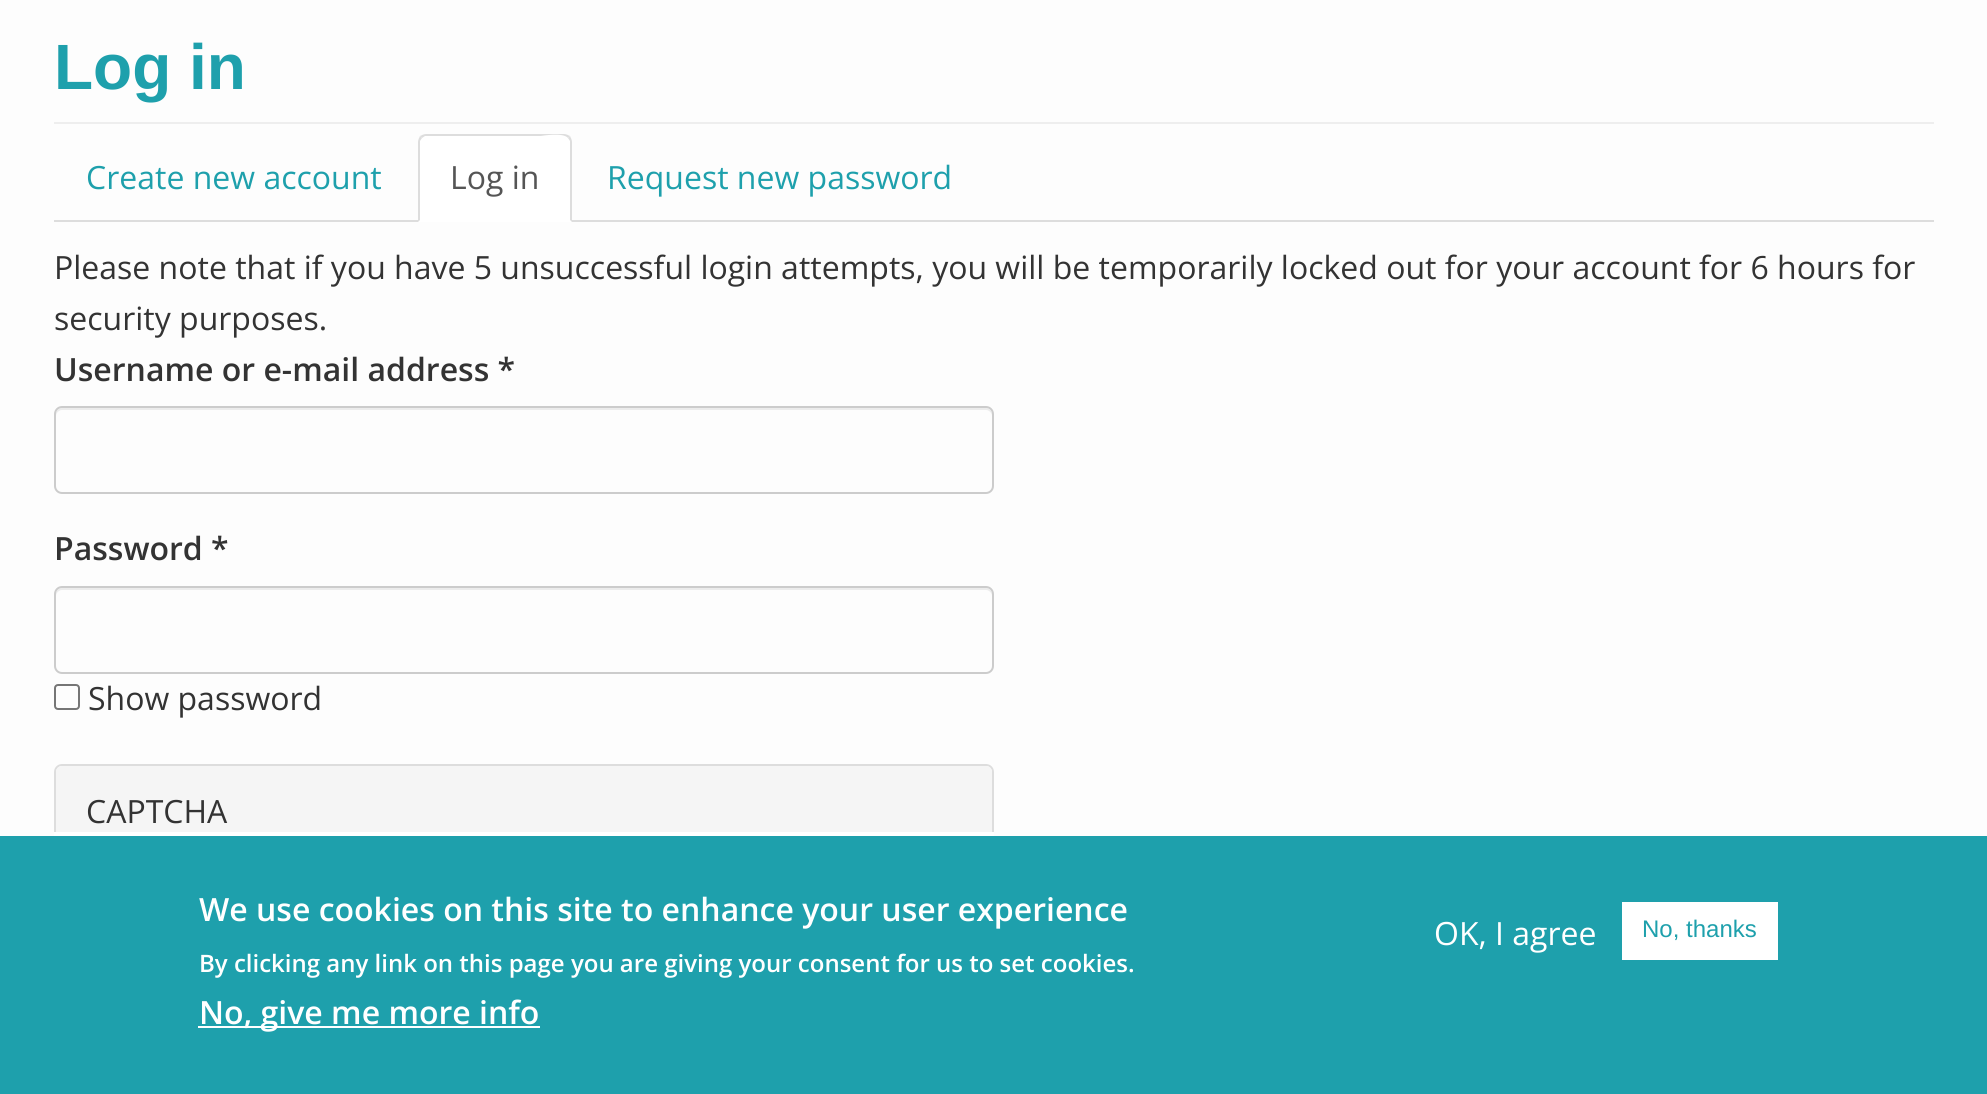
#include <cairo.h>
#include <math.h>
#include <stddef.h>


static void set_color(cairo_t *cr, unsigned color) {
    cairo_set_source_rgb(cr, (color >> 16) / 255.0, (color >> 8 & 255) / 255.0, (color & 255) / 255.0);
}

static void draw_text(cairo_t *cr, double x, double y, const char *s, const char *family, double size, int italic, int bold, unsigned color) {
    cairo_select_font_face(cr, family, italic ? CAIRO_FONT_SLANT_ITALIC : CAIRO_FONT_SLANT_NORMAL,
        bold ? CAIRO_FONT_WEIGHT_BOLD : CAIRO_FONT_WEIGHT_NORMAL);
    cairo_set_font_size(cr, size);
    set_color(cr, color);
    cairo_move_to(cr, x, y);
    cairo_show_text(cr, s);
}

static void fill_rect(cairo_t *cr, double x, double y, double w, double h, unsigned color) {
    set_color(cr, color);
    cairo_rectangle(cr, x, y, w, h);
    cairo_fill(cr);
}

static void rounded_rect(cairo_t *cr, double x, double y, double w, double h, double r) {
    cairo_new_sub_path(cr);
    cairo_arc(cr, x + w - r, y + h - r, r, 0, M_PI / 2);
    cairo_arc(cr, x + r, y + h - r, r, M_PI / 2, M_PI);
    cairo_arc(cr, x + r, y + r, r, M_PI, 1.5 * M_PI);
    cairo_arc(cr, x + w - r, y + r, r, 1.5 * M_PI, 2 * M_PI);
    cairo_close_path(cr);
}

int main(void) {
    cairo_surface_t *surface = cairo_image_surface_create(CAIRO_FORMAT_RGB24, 1987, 1094);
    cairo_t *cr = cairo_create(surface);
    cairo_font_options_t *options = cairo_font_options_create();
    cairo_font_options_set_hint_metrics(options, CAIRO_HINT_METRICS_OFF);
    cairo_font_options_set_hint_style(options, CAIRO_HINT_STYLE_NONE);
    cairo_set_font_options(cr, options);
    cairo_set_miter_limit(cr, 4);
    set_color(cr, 0xFDFDFD);
    cairo_paint(cr);
    fill_rect(cr, 54, 122, 1880, 2, 0xEEEEEE);
    draw_text(cr, 54, 89, "Log in", "Arimo", 64, 0, 1, 0x1EA0AC);
    fill_rect(cr, 54, 220, 1880, 2, 0xDDDDDD);
    draw_text(cr, 86, 189, "Create new account", "Open Sans", 32, 0, 0, 0x1EA0AC);
    set_color(cr, 0xFFFFFF);
    cairo_new_path(cr);
    cairo_move_to(cr, 426, 134);
    cairo_line_to(cr, 564, 134);
    cairo_curve_to(cr, 568.5, 134, 572, 137.5, 572, 142);
    cairo_line_to(cr, 572, 222);
    cairo_line_to(cr, 418, 222);
    cairo_line_to(cr, 418, 142);
    cairo_curve_to(cr, 418, 137.5, 421.5, 134, 426, 134);
    cairo_close_path(cr);
    cairo_fill(cr);
    set_color(cr, 0xDDDDDD);
    cairo_new_path(cr);
    cairo_move_to(cr, 426, 134);
    cairo_curve_to(cr, 424, 134, 422, 135, 420, 136);
    cairo_line_to(cr, 422, 138);
    cairo_line_to(cr, 425, 136);
    cairo_line_to(cr, 541, 136);
    cairo_curve_to(cr, 541, 136, 563, 132, 568, 138);
    cairo_line_to(cr, 570, 136);
    cairo_curve_to(cr, 568, 135, 566, 134, 564, 134);
    cairo_close_path(cr);
    cairo_fill(cr);
    cairo_new_path(cr);
    cairo_move_to(cr, 572, 222);
    cairo_line_to(cr, 572, 142);
    cairo_curve_to(cr, 572, 140, 571, 138, 570, 136);
    cairo_line_to(cr, 568, 138);
    cairo_line_to(cr, 570, 141);
    cairo_line_to(cr, 570, 220);
    cairo_close_path(cr);
    cairo_fill(cr);
    cairo_new_path(cr);
    cairo_move_to(cr, 418, 222);
    cairo_line_to(cr, 420, 220);
    cairo_line_to(cr, 420, 141);
    cairo_line_to(cr, 422, 138);
    cairo_line_to(cr, 420, 136);
    cairo_curve_to(cr, 419, 138, 418, 140, 418, 142);
    cairo_close_path(cr);
    cairo_fill(cr);
    draw_text(cr, 450, 189, "Log in", "Open Sans", 32, 0, 0, 0x555555);
    draw_text(cr, 607, 189, "Request new password", "Open Sans", 32, 0, 0, 0x1EA0AC);
    draw_text(cr, 54, 279, "Please note that if you have 5 unsuccessful login attempts, you will be temporarily locked out for your account for 6 hours for", "Open Sans", 32, 0, 0, 0x333333);
    draw_text(cr, 54, 330, "security purposes.", "Open Sans", 32, 0, 0, 0x333333);
    draw_text(cr, 54, 381, "Username or e-mail address *", "Open Sans SemiBold", 32, 0, 0, 0x333333);
    set_color(cr, 0xECECEC);
    cairo_new_path(cr);
    cairo_move_to(cr, 62, 410);
    cairo_line_to(cr, 986, 410);
    cairo_curve_to(cr, 989, 410, 992, 413, 992, 416);
    cairo_line_to(cr, 992, 414);
    cairo_curve_to(cr, 992, 411, 989, 408, 986, 408);
    cairo_line_to(cr, 62, 408);
    cairo_curve_to(cr, 59, 408, 56, 411, 56, 414);
    cairo_line_to(cr, 56, 416);
    cairo_curve_to(cr, 56, 413, 59, 410, 62, 410);
    cairo_close_path(cr);
    cairo_fill(cr);
    rounded_rect(cr, 55, 407, 938, 86, 7);
    set_color(cr, 0xCCCCCC);
    cairo_stroke(cr);
    draw_text(cr, 54, 560, "Password *", "Open Sans SemiBold", 32, 0, 0, 0x333333);
    set_color(cr, 0xECECEC);
    cairo_new_path(cr);
    cairo_move_to(cr, 62, 590);
    cairo_line_to(cr, 986, 590);
    cairo_curve_to(cr, 989, 590, 992, 593, 992, 596);
    cairo_line_to(cr, 992, 594);
    cairo_curve_to(cr, 992, 591, 989, 588, 986, 588);
    cairo_line_to(cr, 62, 588);
    cairo_curve_to(cr, 59, 588, 56, 591, 56, 594);
    cairo_line_to(cr, 56, 596);
    cairo_curve_to(cr, 56, 593, 59, 590, 62, 590);
    cairo_close_path(cr);
    cairo_fill(cr);
    rounded_rect(cr, 55, 587, 938, 86, 7);
    set_color(cr, 0xCCCCCC);
    cairo_stroke(cr);
    rounded_rect(cr, 55, 685, 24, 24, 3);
    set_color(cr, 0x767676);
    cairo_stroke(cr);
    draw_text(cr, 88, 710, "Show password", "Open Sans", 32, 0, 0, 0x333333);
    rounded_rect(cr, 55, 765, 938, 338, 7);
    set_color(cr, 0xDDDDDD);
    cairo_stroke(cr);
    set_color(cr, 0xF5F5F5);
    cairo_new_path(cr);
    cairo_move_to(cr, 62, 766);
    cairo_line_to(cr, 986, 766);
    cairo_curve_to(cr, 989.5, 766, 992, 768.5, 992, 772);
    cairo_line_to(cr, 992, 854);
    cairo_line_to(cr, 56, 854);
    cairo_line_to(cr, 56, 772);
    cairo_curve_to(cr, 56, 768.5, 58.5, 766, 62, 766);
    cairo_close_path(cr);
    cairo_fill(cr);
    draw_text(cr, 86, 823, "CAPTCHA", "Open Sans", 32, 0, 0, 0x333333);
    fill_rect(cr, 0, 836, 1987, 258, 0x1EA0AC);
    fill_rect(cr, 54, 832, 940, 4, 0xFFFFFF);
    draw_text(cr, 199, 921, "We use cookies on this site to enhance your user experience", "Open Sans SemiBold", 32, 0, 0, 0xFFFFFF);
    draw_text(cr, 199, 972, "By clicking any link on this page you are giving your consent for us to set cookies.", "Open Sans SemiBold", 24, 0, 0, 0xFFFFFF);
    fill_rect(cr, 198, 1026, 342, 2, 0xFFFFFF);
    draw_text(cr, 199, 1024, "No, give me more info", "Open Sans SemiBold", 32, 0, 0, 0xFFFFFF);
    draw_text(cr, 1434, 945, "OK, I agree", "Open Sans", 32, 0, 0, 0xFFFFFF);
    fill_rect(cr, 1622, 902, 156, 58, 0xFFFFFF);
    draw_text(cr, 1642, 937, "No, thanks", "Liberation Sans", 24, 0, 0, 0x1EA0AC);
    cairo_surface_write_to_png(surface, "output.png");
    cairo_font_options_destroy(options);
    cairo_destroy(cr);
    cairo_surface_destroy(surface);
    return 0;
}
